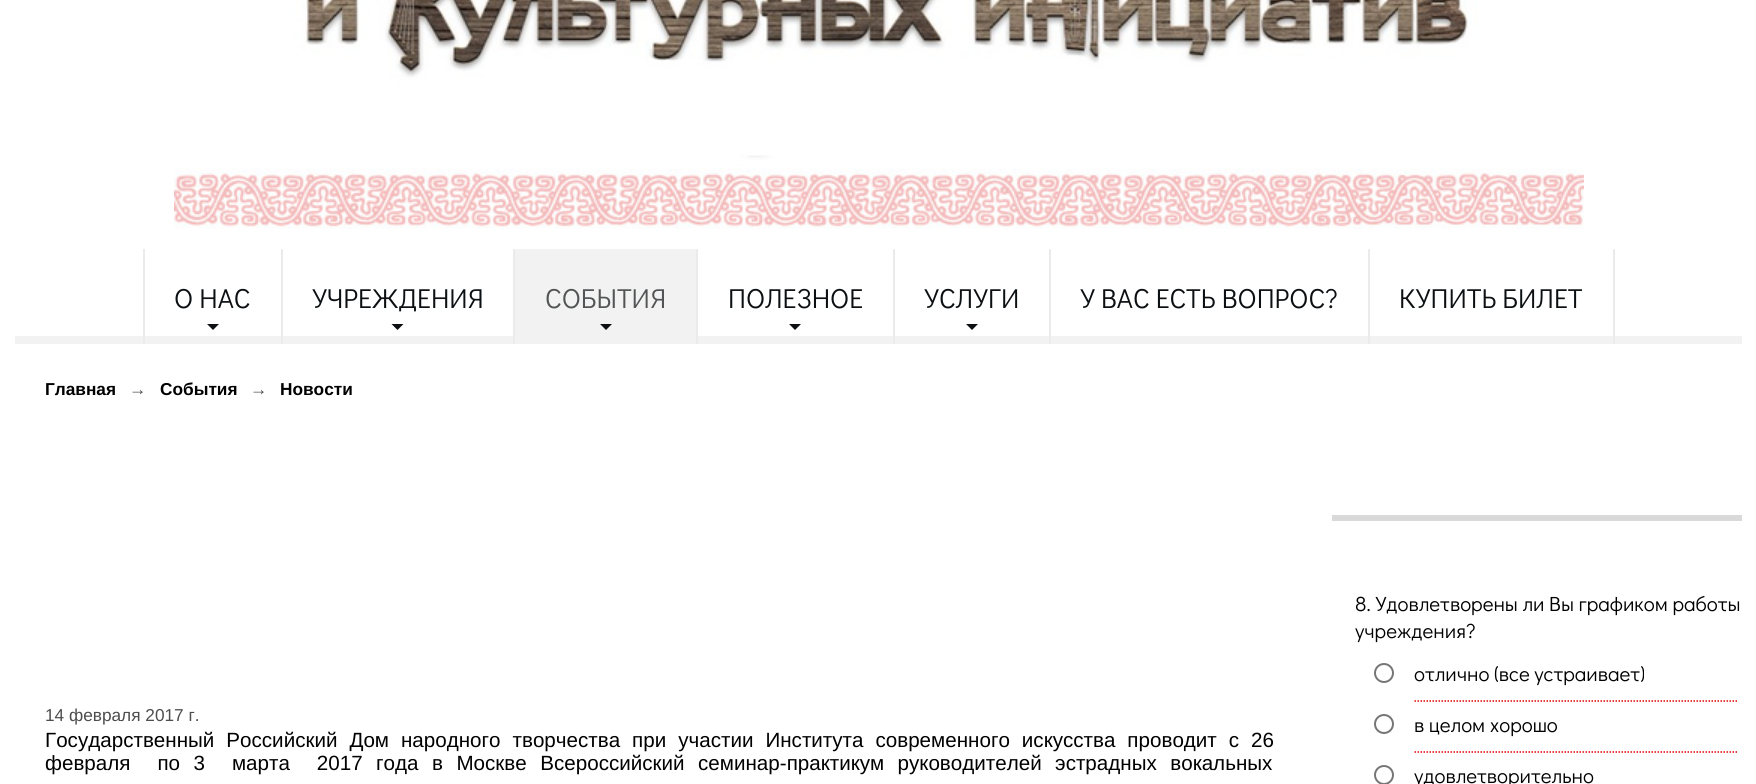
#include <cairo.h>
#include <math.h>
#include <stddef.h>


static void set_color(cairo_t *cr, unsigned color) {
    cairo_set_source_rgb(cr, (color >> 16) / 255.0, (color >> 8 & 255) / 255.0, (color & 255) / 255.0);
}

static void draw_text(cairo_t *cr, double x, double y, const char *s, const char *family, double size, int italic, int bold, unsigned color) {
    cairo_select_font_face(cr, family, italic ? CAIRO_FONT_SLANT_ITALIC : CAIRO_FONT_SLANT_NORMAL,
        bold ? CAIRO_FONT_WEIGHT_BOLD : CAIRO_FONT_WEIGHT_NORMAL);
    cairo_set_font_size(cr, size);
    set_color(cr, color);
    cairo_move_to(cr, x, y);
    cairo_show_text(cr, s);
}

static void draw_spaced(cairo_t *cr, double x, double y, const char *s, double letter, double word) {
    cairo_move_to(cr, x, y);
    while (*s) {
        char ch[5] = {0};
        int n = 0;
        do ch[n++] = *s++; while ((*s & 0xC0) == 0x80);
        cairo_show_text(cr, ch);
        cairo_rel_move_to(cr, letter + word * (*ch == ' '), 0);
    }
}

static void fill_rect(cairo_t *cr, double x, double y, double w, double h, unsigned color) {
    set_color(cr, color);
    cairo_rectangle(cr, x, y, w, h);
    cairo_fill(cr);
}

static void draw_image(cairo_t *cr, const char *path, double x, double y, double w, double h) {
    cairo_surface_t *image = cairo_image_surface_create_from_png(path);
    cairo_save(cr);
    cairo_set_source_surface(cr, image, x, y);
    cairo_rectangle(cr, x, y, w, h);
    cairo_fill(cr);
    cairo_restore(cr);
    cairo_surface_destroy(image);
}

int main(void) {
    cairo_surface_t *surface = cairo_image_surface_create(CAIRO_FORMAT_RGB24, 1756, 784);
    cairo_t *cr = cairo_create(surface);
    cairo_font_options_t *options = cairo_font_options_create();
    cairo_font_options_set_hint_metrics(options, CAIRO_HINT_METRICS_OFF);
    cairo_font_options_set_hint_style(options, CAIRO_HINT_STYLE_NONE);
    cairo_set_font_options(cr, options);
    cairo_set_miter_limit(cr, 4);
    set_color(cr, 0xFFFFFF);
    cairo_paint(cr);
    draw_image(cr, "assets/img1.png", 174, 0, 1410, 229);
    fill_rect(cr, 15, 336, 1727, 8, 0xF2F2F2);
    fill_rect(cr, 281, 249, 2, 95, 0xEBEBEB);
    fill_rect(cr, 143, 249, 2, 95, 0xEBEBEB);
    draw_text(cr, 174, 308, "О НАС", "Didact Gothic", 27.5, 0, 0, 0x0D1012);
    cairo_new_path(cr);
    cairo_move_to(cr, 207, 324);
    cairo_line_to(cr, 219, 324);
    cairo_line_to(cr, 213, 330);
    cairo_close_path(cr);
    cairo_fill(cr);
    fill_rect(cr, 513, 249, 2, 95, 0xEBEBEB);
    draw_text(cr, 312, 308, "УЧРЕЖДЕНИЯ", "Didact Gothic", 27.5, 0, 0, 0x0D1012);
    cairo_new_path(cr);
    cairo_move_to(cr, 391.5, 324);
    cairo_line_to(cr, 403.5, 324);
    cairo_line_to(cr, 397.5, 330);
    cairo_close_path(cr);
    cairo_fill(cr);
    fill_rect(cr, 696, 249, 2, 95, 0xEBEBEB);
    fill_rect(cr, 515, 249, 181, 87, 0xF2F2F2);
    draw_text(cr, 545, 308, "СОБЫТИЯ", "Didact Gothic", 27.5, 0, 0, 0x525455);
    set_color(cr, 0x0D1012);
    cairo_new_path(cr);
    cairo_move_to(cr, 600, 324);
    cairo_line_to(cr, 612, 324);
    cairo_line_to(cr, 606, 330);
    cairo_close_path(cr);
    cairo_fill(cr);
    fill_rect(cr, 893, 249, 2, 95, 0xEBEBEB);
    draw_text(cr, 728, 308, "ПОЛЕЗНОЕ", "Didact Gothic", 27.5, 0, 0, 0x0D1012);
    cairo_new_path(cr);
    cairo_move_to(cr, 789, 324);
    cairo_line_to(cr, 801, 324);
    cairo_line_to(cr, 795, 330);
    cairo_close_path(cr);
    cairo_fill(cr);
    fill_rect(cr, 1049, 249, 2, 95, 0xEBEBEB);
    draw_text(cr, 924, 308, "УСЛУГИ", "Didact Gothic", 27.5, 0, 0, 0x0D1012);
    cairo_new_path(cr);
    cairo_move_to(cr, 966, 324);
    cairo_line_to(cr, 978, 324);
    cairo_line_to(cr, 972, 330);
    cairo_close_path(cr);
    cairo_fill(cr);
    fill_rect(cr, 1368, 249, 2, 95, 0xEBEBEB);
    draw_text(cr, 1080, 308, "У ВАС ЕСТЬ ВОПРОС?", "Didact Gothic", 27.5, 0, 0, 0x0D1012);
    fill_rect(cr, 1613, 249, 2, 95, 0xEBEBEB);
    draw_text(cr, 1399, 308, "КУПИТЬ БИЛЕТ", "Didact Gothic", 27.5, 0, 0, 0x0D1012);
    draw_text(cr, 45, 395, "Главная", "Liberation Sans", 17.25, 0, 1, 0x000000);
    draw_text(cr, 129, 395, "→", "Liberation Sans", 17.25, 1, 0, 0x4D4D4D);
    draw_text(cr, 160, 395, "События", "Liberation Sans", 17.25, 0, 1, 0x000000);
    draw_text(cr, 250, 395, "→", "Liberation Sans", 17.25, 1, 0, 0x4D4D4D);
    draw_text(cr, 280, 395, "Новости", "Liberation Sans", 17.25, 0, 1, 0x000000);
    draw_text(cr, 45, 721, "14 февраля 2017 г.", "Liberation Sans", 17.25, 0, 0, 0x4D4D4D);
    cairo_set_font_size(cr, 20.6);
    set_color(cr, 0x000000);
    draw_spaced(cr, 45, 747, "Государственный Российский Дом народного творчества при участии Института современного искусства проводит с 26", 0, 6.25);
    draw_spaced(cr, 45, 770, "февраля  по 3  марта  2017 года в Москве Всероссийский семинар-практикум руководителей эстрадных вокальных", 0, 7.75);
    fill_rect(cr, 1332, 515, 410, 6, 0xD9D9D9);
    draw_text(cr, 1355, 611, "8. Удовлетворены ли Вы графиком работы", "Didact Gothic", 20.6, 0, 0, 0x000000);
    draw_text(cr, 1355, 638, "учреждения?", "Didact Gothic", 20.6, 0, 0, 0x000000);
    cairo_new_path(cr);
    cairo_arc(cr, 1384, 673, 9, 0, 2 * M_PI);
    set_color(cr, 0x767676);
    cairo_stroke(cr);
    cairo_new_path(cr);
    cairo_move_to(cr, 1414.5, 701);
    cairo_line_to(cr, 1738.5, 701);
    set_color(cr, 0xE00000);
    cairo_set_line_width(cr, 1.5);
    cairo_set_dash(cr, (double[]){1.5, 1.5}, 2, 0);
    cairo_stroke(cr);
    draw_text(cr, 1414, 681, "отлично (все устраивает)", "Didact Gothic", 20.6, 0, 0, 0x000000);
    cairo_new_path(cr);
    cairo_arc(cr, 1384, 724, 9, 0, 2 * M_PI);
    set_color(cr, 0x767676);
    cairo_set_line_width(cr, 2);
    cairo_set_dash(cr, NULL, 0, 0);
    cairo_stroke(cr);
    cairo_new_path(cr);
    cairo_move_to(cr, 1414.5, 752);
    cairo_line_to(cr, 1738.5, 752);
    set_color(cr, 0xE00000);
    cairo_set_line_width(cr, 1.5);
    cairo_set_dash(cr, (double[]){1.5, 1.5}, 2, 0);
    cairo_stroke(cr);
    draw_text(cr, 1414, 732, "в целом хорошо", "Didact Gothic", 20.6, 0, 0, 0x000000);
    cairo_new_path(cr);
    cairo_arc(cr, 1384, 775, 9, 0, 2 * M_PI);
    set_color(cr, 0x767676);
    cairo_set_line_width(cr, 2);
    cairo_set_dash(cr, NULL, 0, 0);
    cairo_stroke(cr);
    draw_text(cr, 1414, 783, "удовлетворительно", "Didact Gothic", 20.6, 0, 0, 0x000000);
    cairo_surface_write_to_png(surface, "output.png");
    cairo_font_options_destroy(options);
    cairo_destroy(cr);
    cairo_surface_destroy(surface);
    return 0;
}
